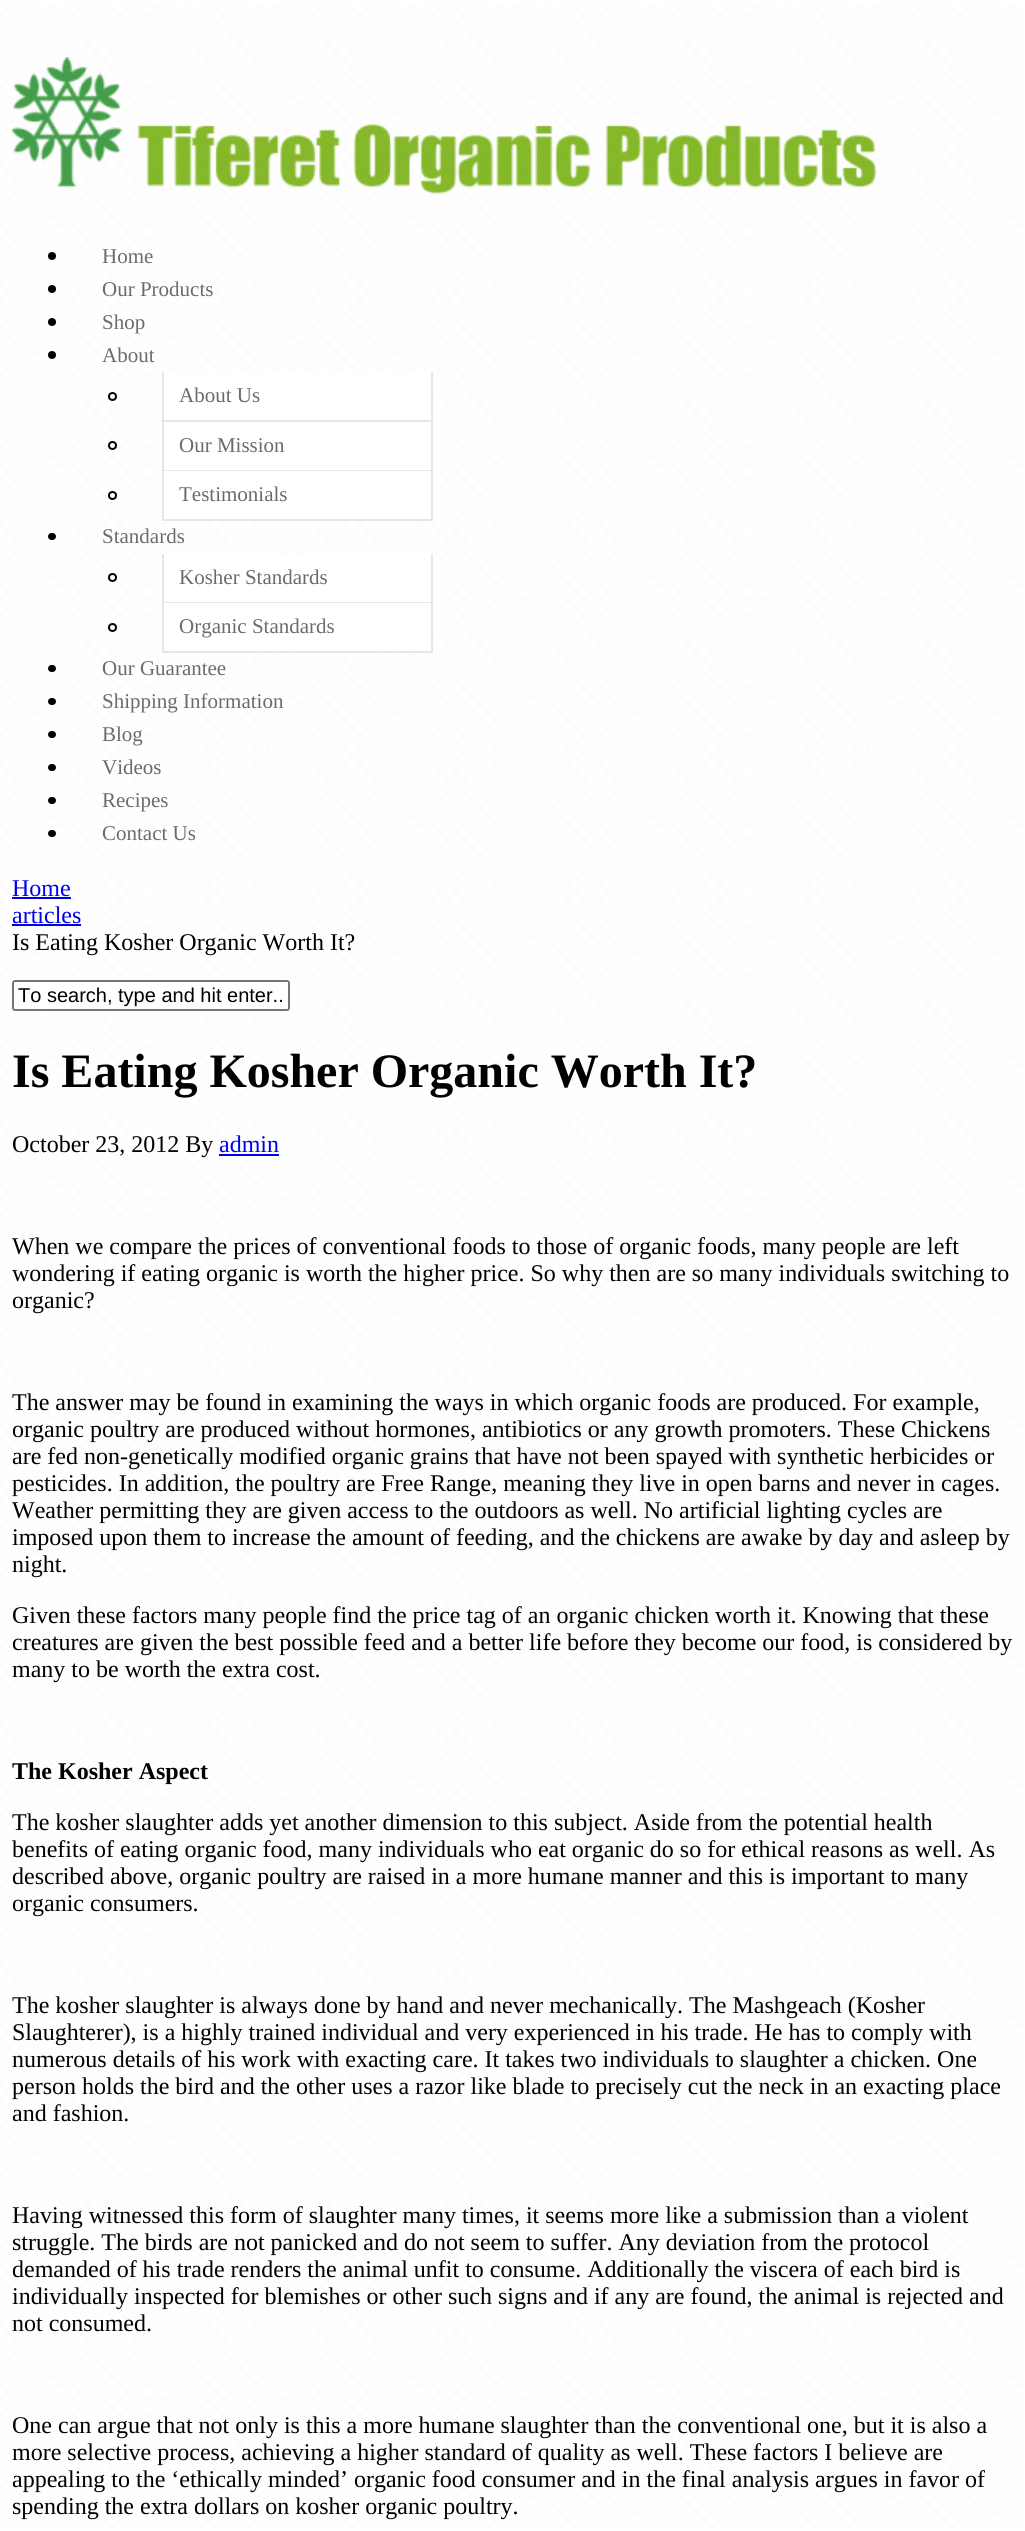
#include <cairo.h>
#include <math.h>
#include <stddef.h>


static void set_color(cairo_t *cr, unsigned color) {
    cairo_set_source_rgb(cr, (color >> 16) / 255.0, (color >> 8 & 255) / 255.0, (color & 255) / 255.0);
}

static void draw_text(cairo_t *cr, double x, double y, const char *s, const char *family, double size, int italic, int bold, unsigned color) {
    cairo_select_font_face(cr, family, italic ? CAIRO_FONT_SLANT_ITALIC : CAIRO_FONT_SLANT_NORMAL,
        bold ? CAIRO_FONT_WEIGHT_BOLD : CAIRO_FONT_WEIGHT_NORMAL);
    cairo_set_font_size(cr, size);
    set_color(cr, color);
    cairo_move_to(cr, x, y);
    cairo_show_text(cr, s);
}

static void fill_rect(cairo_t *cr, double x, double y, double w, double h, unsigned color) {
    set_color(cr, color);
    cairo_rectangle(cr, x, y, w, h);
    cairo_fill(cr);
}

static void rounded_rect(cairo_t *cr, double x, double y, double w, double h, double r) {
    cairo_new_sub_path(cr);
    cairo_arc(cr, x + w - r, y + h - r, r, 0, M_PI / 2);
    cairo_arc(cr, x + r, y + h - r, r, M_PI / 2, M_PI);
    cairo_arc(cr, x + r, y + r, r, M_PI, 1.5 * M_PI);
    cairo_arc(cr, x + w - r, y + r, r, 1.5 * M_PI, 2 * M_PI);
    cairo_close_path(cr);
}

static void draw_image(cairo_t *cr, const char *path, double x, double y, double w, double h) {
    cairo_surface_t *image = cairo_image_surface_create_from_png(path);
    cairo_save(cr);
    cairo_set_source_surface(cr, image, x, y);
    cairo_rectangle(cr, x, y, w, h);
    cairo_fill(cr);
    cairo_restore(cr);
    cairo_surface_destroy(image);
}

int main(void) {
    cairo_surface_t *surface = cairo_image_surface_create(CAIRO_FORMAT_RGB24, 1025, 2531);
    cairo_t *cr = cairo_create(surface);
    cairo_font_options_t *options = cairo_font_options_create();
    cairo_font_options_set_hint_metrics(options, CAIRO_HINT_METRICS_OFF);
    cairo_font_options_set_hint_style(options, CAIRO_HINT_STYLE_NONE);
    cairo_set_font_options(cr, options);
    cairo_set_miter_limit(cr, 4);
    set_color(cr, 0xFFFFFF);
    cairo_paint(cr);
    draw_image(cr, "assets/img1.png", 0, 3, 1024, 2527);
    draw_image(cr, "assets/img2.png", 12, 57, 864, 137);
    set_color(cr, 0x000000);
    cairo_arc(cr, 52, 256, 4, 0, 2 * M_PI);
    cairo_fill(cr);
    draw_text(cr, 102, 263, "Home", "Liberation Serif", 21, 0, 0, 0x6B6B6B);
    set_color(cr, 0x000000);
    cairo_new_path(cr);
    cairo_arc(cr, 52, 289, 4, 0, 2 * M_PI);
    cairo_fill(cr);
    draw_text(cr, 102, 296, "Our Products", "Liberation Serif", 21, 0, 0, 0x6B6B6B);
    set_color(cr, 0x000000);
    cairo_new_path(cr);
    cairo_arc(cr, 52, 322, 4, 0, 2 * M_PI);
    cairo_fill(cr);
    draw_text(cr, 102, 329, "Shop", "Liberation Serif", 21, 0, 0, 0x6B6B6B);
    set_color(cr, 0x000000);
    cairo_new_path(cr);
    cairo_arc(cr, 52, 355, 4, 0, 2 * M_PI);
    cairo_fill(cr);
    draw_text(cr, 102, 362, "About", "Liberation Serif", 21, 0, 0, 0x6B6B6B);
    cairo_new_path(cr);
    cairo_arc(cr, 112.5, 396.5, 3.5, 0, 2 * M_PI);
    set_color(cr, 0x000000);
    cairo_stroke(cr);
    fill_rect(cr, 164, 372, 267, 48, 0xFFFFFF);
    fill_rect(cr, 431, 372, 2, 149, 0xE6E6E6);
    fill_rect(cr, 162, 420, 270, 2, 0xE6E6E6);
    fill_rect(cr, 162, 372, 2, 50, 0xE6E6E6);
    draw_text(cr, 179, 402, "About Us", "Liberation Serif", 21, 0, 0, 0x6B6B6B);
    cairo_new_path(cr);
    cairo_arc(cr, 112.5, 445.5, 3.5, 0, 2 * M_PI);
    set_color(cr, 0x000000);
    cairo_stroke(cr);
    fill_rect(cr, 165, 422, 266, 48, 0xFFFFFF);
    fill_rect(cr, 162, 470, 270, 1, 0xE6E6E6);
    fill_rect(cr, 162, 422, 2, 49, 0xE6E6E6);
    draw_text(cr, 179, 452, "Our Mission", "Liberation Serif", 21, 0, 0, 0x6B6B6B);
    cairo_new_path(cr);
    cairo_arc(cr, 112.5, 495.5, 3.5, 0, 2 * M_PI);
    set_color(cr, 0x000000);
    cairo_stroke(cr);
    fill_rect(cr, 164, 471, 267, 48, 0xFFFFFF);
    fill_rect(cr, 162, 519, 270, 2, 0xE6E6E6);
    fill_rect(cr, 162, 471, 2, 50, 0xE6E6E6);
    draw_text(cr, 179, 501, "Testimonials", "Liberation Serif", 21, 0, 0, 0x6B6B6B);
    set_color(cr, 0x000000);
    rounded_rect(cr, 48, 533, 8, 7, 3.5);
    cairo_fill(cr);
    draw_text(cr, 102, 543, "Standards", "Liberation Serif", 21, 0, 0, 0x6B6B6B);
    cairo_new_path(cr);
    cairo_arc(cr, 112.5, 577.5, 3.5, 0, 2 * M_PI);
    set_color(cr, 0x000000);
    cairo_stroke(cr);
    fill_rect(cr, 165, 554, 266, 48, 0xFFFFFF);
    fill_rect(cr, 431, 554, 2, 99, 0xE6E6E6);
    fill_rect(cr, 162, 602, 270, 1, 0xE6E6E6);
    fill_rect(cr, 162, 554, 2, 49, 0xE6E6E6);
    draw_text(cr, 179, 584, "Kosher Standards", "Liberation Serif", 21, 0, 0, 0x6B6B6B);
    cairo_new_path(cr);
    cairo_arc(cr, 112.5, 627.5, 3.5, 0, 2 * M_PI);
    set_color(cr, 0x000000);
    cairo_stroke(cr);
    fill_rect(cr, 164, 603, 267, 48, 0xFFFFFF);
    fill_rect(cr, 162, 651, 270, 2, 0xE6E6E6);
    fill_rect(cr, 162, 603, 2, 50, 0xE6E6E6);
    draw_text(cr, 179, 633, "Organic Standards", "Liberation Serif", 21, 0, 0, 0x6B6B6B);
    set_color(cr, 0x000000);
    rounded_rect(cr, 48, 665, 8, 7, 3.5);
    cairo_fill(cr);
    draw_text(cr, 102, 675, "Our Guarantee", "Liberation Serif", 21, 0, 0, 0x6B6B6B);
    set_color(cr, 0x000000);
    rounded_rect(cr, 48, 698, 8, 7, 3.5);
    cairo_fill(cr);
    draw_text(cr, 102, 708, "Shipping Information", "Liberation Serif", 21, 0, 0, 0x6B6B6B);
    set_color(cr, 0x000000);
    rounded_rect(cr, 48, 731, 8, 7, 3.5);
    cairo_fill(cr);
    draw_text(cr, 102, 741, "Blog", "Liberation Serif", 21, 0, 0, 0x6B6B6B);
    set_color(cr, 0x000000);
    rounded_rect(cr, 48, 764, 8, 7, 3.5);
    cairo_fill(cr);
    draw_text(cr, 102, 774, "Videos", "Liberation Serif", 21, 0, 0, 0x6B6B6B);
    set_color(cr, 0x000000);
    rounded_rect(cr, 48, 797, 8, 7, 3.5);
    cairo_fill(cr);
    draw_text(cr, 102, 807, "Recipes", "Liberation Serif", 21, 0, 0, 0x6B6B6B);
    set_color(cr, 0x000000);
    rounded_rect(cr, 48, 830, 8, 7, 3.5);
    cairo_fill(cr);
    draw_text(cr, 102, 840, "Contact Us", "Liberation Serif", 21, 0, 0, 0x6B6B6B);
    draw_text(cr, 12, 896, "Home", "Liberation Serif", 24, 0, 0, 0x0000EE);
    fill_rect(cr, 12, 897, 59, 2, 0x0000EE);
    draw_text(cr, 12, 923, "articles", "Liberation Serif", 24, 0, 0, 0x0000EE);
    fill_rect(cr, 12, 924, 69, 2, 0x0000EE);
    draw_text(cr, 12, 950, "Is Eating Kosher Organic Worth It?", "Liberation Serif", 24, 0, 0, 0x000000);
    set_color(cr, 0xFFFFFF);
    rounded_rect(cr, 13, 981, 276, 29, 2);
    cairo_fill_preserve(cr);
    set_color(cr, 0x767676);
    cairo_stroke(cr);
    draw_text(cr, 18, 1002, "To search, type and hit enter..", "Liberation Sans", 20, 0, 0, 0x000000);
    draw_text(cr, 12, 1087, "Is Eating Kosher Organic Worth It?", "Liberation Serif", 48, 0, 1, 0x000000);
    draw_text(cr, 12, 1152, "October 23, 2012 By", "Liberation Serif", 24, 0, 0, 0x000000);
    draw_text(cr, 219, 1152, "admin", "Liberation Serif", 24, 0, 0, 0x0000EE);
    fill_rect(cr, 219, 1154, 60, 2, 0x0000EE);
    draw_text(cr, 12, 1254, "When we compare the prices of conventional foods to those of organic foods, many people are left", "Liberation Serif", 24, 0, 0, 0x000000);
    draw_text(cr, 12, 1281, "wondering if eating organic is worth the higher price. So why then are so many individuals switching to", "Liberation Serif", 24, 0, 0, 0x000000);
    draw_text(cr, 12, 1308, "organic?", "Liberation Serif", 24, 0, 0, 0x000000);
    draw_text(cr, 12, 1410, "The answer may be found in examining the ways in which organic foods are produced. For example,", "Liberation Serif", 24, 0, 0, 0x000000);
    draw_text(cr, 12, 1437, "organic poultry are produced without hormones, antibiotics or any growth promoters. These Chickens", "Liberation Serif", 24, 0, 0, 0x000000);
    draw_text(cr, 12, 1464, "are fed non-genetically modified organic grains that have not been spayed with synthetic herbicides or", "Liberation Serif", 24, 0, 0, 0x000000);
    draw_text(cr, 12, 1491, "pesticides. In addition, the poultry are Free Range, meaning they live in open barns and never in cages.", "Liberation Serif", 24, 0, 0, 0x000000);
    draw_text(cr, 12, 1518, "Weather permitting they are given access to the outdoors as well. No artificial lighting cycles are", "Liberation Serif", 24, 0, 0, 0x000000);
    draw_text(cr, 12, 1545, "imposed upon them to increase the amount of feeding, and the chickens are awake by day and asleep by", "Liberation Serif", 24, 0, 0, 0x000000);
    draw_text(cr, 12, 1572, "night.", "Liberation Serif", 24, 0, 0, 0x000000);
    draw_text(cr, 12, 1623, "Given these factors many people find the price tag of an organic chicken worth it. Knowing that these", "Liberation Serif", 24, 0, 0, 0x000000);
    draw_text(cr, 12, 1650, "creatures are given the best possible feed and a better life before they become our food, is considered by", "Liberation Serif", 24, 0, 0, 0x000000);
    draw_text(cr, 12, 1677, "many to be worth the extra cost.", "Liberation Serif", 24, 0, 0, 0x000000);
    draw_text(cr, 12, 1779, "The Kosher Aspect", "Liberation Serif", 24, 0, 1, 0x000000);
    draw_text(cr, 12, 1830, "The kosher slaughter adds yet another dimension to this subject. Aside from the potential health", "Liberation Serif", 24, 0, 0, 0x000000);
    draw_text(cr, 12, 1857, "benefits of eating organic food, many individuals who eat organic do so for ethical reasons as well. As", "Liberation Serif", 24, 0, 0, 0x000000);
    draw_text(cr, 12, 1884, "described above, organic poultry are raised in a more humane manner and this is important to many", "Liberation Serif", 24, 0, 0, 0x000000);
    draw_text(cr, 12, 1911, "organic consumers.", "Liberation Serif", 24, 0, 0, 0x000000);
    draw_text(cr, 12, 2013, "The kosher slaughter is always done by hand and never mechanically. The Mashgeach (Kosher", "Liberation Serif", 24, 0, 0, 0x000000);
    draw_text(cr, 12, 2040, "Slaughterer), is a highly trained individual and very experienced in his trade. He has to comply with", "Liberation Serif", 24, 0, 0, 0x000000);
    draw_text(cr, 12, 2067, "numerous details of his work with exacting care. It takes two individuals to slaughter a chicken. One", "Liberation Serif", 24, 0, 0, 0x000000);
    draw_text(cr, 12, 2094, "person holds the bird and the other uses a razor like blade to precisely cut the neck in an exacting place", "Liberation Serif", 24, 0, 0, 0x000000);
    draw_text(cr, 12, 2121, "and fashion.", "Liberation Serif", 24, 0, 0, 0x000000);
    draw_text(cr, 12, 2223, "Having witnessed this form of slaughter many times, it seems more like a submission than a violent", "Liberation Serif", 24, 0, 0, 0x000000);
    draw_text(cr, 12, 2250, "struggle. The birds are not panicked and do not seem to suffer. Any deviation from the protocol", "Liberation Serif", 24, 0, 0, 0x000000);
    draw_text(cr, 12, 2277, "demanded of his trade renders the animal unfit to consume. Additionally the viscera of each bird is", "Liberation Serif", 24, 0, 0, 0x000000);
    draw_text(cr, 12, 2304, "individually inspected for blemishes or other such signs and if any are found, the animal is rejected and", "Liberation Serif", 24, 0, 0, 0x000000);
    draw_text(cr, 12, 2331, "not consumed.", "Liberation Serif", 24, 0, 0, 0x000000);
    draw_text(cr, 12, 2433, "One can argue that not only is this a more humane slaughter than the conventional one, but it is also a", "Liberation Serif", 24, 0, 0, 0x000000);
    draw_text(cr, 12, 2460, "more selective process, achieving a higher standard of quality as well. These factors I believe are", "Liberation Serif", 24, 0, 0, 0x000000);
    draw_text(cr, 12, 2487, "appealing to the ‘ethically minded’ organic food consumer and in the final analysis argues in favor of", "Liberation Serif", 24, 0, 0, 0x000000);
    draw_text(cr, 12, 2514, "spending the extra dollars on kosher organic poultry.", "Liberation Serif", 24, 0, 0, 0x000000);
    cairo_surface_write_to_png(surface, "output.png");
    cairo_font_options_destroy(options);
    cairo_destroy(cr);
    cairo_surface_destroy(surface);
    return 0;
}
